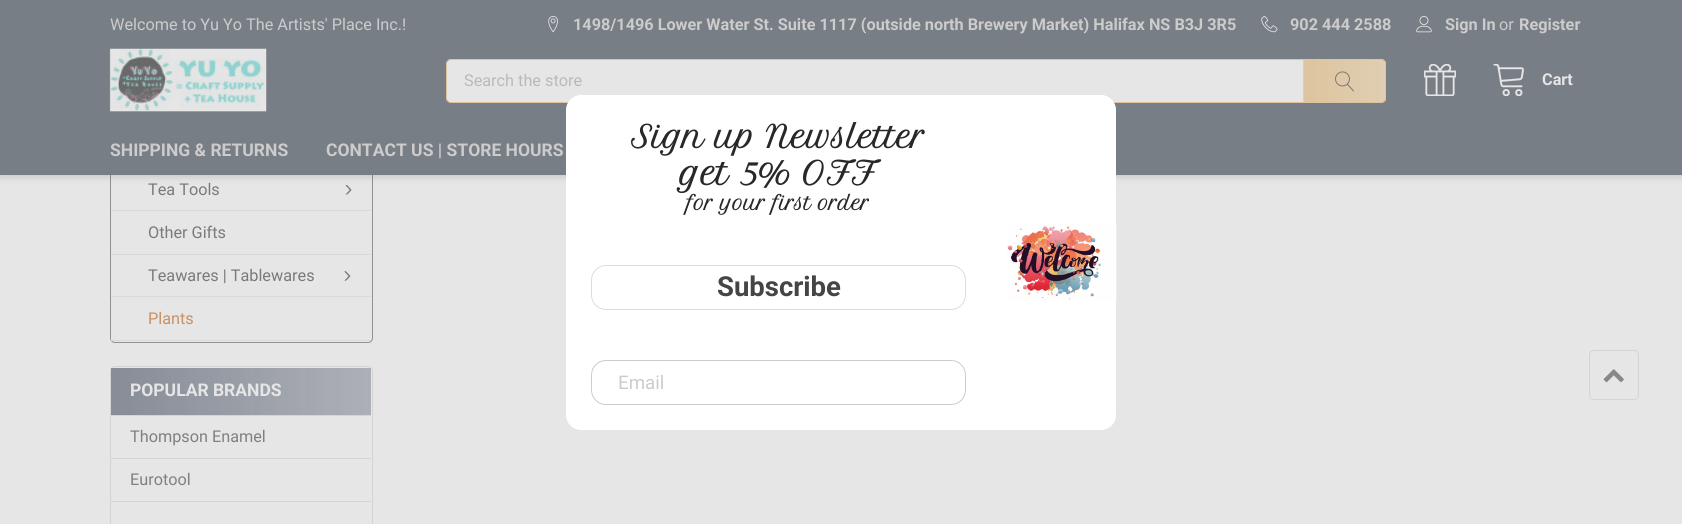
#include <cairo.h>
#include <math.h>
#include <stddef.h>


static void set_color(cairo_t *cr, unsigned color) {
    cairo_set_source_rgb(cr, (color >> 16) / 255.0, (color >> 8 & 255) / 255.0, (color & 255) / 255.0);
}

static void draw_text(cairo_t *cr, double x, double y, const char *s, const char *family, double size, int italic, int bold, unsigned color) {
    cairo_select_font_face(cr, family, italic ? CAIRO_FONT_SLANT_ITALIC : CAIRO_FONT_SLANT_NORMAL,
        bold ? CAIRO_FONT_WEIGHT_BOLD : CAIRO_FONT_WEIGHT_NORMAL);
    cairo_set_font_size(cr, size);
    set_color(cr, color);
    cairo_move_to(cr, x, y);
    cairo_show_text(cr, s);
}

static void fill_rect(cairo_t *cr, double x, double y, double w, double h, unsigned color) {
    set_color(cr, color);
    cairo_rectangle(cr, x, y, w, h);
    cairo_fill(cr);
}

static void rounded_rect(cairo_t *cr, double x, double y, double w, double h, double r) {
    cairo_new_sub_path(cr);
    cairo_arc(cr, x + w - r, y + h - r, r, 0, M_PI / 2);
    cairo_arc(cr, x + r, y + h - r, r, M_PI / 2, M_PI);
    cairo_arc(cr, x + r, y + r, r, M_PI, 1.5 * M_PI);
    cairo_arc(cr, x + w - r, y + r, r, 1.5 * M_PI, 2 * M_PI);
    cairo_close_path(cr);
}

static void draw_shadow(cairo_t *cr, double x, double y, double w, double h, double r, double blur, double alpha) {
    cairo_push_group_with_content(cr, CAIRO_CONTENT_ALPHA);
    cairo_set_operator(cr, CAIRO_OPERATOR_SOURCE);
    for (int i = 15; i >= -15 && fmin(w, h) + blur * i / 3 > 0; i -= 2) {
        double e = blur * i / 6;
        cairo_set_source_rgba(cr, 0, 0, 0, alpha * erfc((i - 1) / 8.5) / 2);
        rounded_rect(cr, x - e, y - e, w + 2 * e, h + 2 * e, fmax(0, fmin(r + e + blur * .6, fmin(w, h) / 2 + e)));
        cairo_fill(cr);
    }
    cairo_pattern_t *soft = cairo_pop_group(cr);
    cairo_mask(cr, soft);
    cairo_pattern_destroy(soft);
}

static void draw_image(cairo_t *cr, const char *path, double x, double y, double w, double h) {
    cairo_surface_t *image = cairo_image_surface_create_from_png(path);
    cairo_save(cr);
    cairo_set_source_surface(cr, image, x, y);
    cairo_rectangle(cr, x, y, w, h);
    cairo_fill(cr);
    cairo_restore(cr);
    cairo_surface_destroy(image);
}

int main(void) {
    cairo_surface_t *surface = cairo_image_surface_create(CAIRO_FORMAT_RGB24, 1682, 524);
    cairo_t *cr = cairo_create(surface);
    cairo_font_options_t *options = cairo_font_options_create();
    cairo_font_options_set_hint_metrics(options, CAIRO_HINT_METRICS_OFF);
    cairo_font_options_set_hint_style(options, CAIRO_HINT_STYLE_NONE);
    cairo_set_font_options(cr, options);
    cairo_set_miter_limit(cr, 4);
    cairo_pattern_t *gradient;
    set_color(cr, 0xE6E6E6);
    cairo_paint(cr);
    cairo_new_path(cr);
    cairo_move_to(cr, 110.5, -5.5);
    cairo_line_to(cr, 372.5, -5.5);
    cairo_line_to(cr, 372.5, 338);
    cairo_curve_to(cr, 372.5, 340.5, 370.5, 342.5, 368, 342.5);
    cairo_line_to(cr, 115, 342.5);
    cairo_curve_to(cr, 112.5, 342.5, 110.5, 340.5, 110.5, 338);
    cairo_close_path(cr);
    set_color(cr, 0x919191);
    cairo_set_line_width(cr, 1);
    cairo_stroke(cr);
    draw_image(cr, "assets/img8.png", 345, 185, 7, 10);
    set_color(cr, 0x666666);
    draw_shadow(cr, 0, 3, 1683, 175, 0, 3, 0.2);
    fill_rect(cr, 0, 0, 1682, 175, 0x787E85);
    draw_text(cr, 110, 30, "Welcome to Yu Yo The Artists' Place Inc.!", "Roboto", 16.25, 0, 0, 0xCCCCCC);
    draw_image(cr, "assets/img1.png", 548, 16, 10, 17);
    draw_text(cr, 573, 30, "1498/1496 Lower Water St. Suite 1117 (outside north Brewery Market) Halifax NS B3J 3R5", "Roboto", 16.25, 0, 1, 0xCCCCCC);
    draw_image(cr, "assets/img2.png", 1261, 16, 17, 17);
    draw_text(cr, 1290, 30, "902 444 2588", "Roboto", 16.25, 0, 1, 0xCCCCCC);
    draw_image(cr, "assets/img3.png", 1416, 16, 16, 17);
    draw_text(cr, 1445, 30, "Sign In", "Roboto", 16.25, 0, 1, 0xCCCCCC);
    draw_text(cr, 1499, 30, "or", "Roboto", 16.25, 0, 0, 0xCCCCCC);
    draw_text(cr, 1519, 30, "Register", "Roboto", 16.25, 0, 1, 0xCCCCCC);
    draw_image(cr, "assets/img4.png", 109, 48, 158, 64);
    set_color(cr, 0xE6E6E6);
    rounded_rect(cr, 446.5, 59.5, 939, 43, 4.5);
    cairo_fill_preserve(cr);
    set_color(cr, 0xDDC49D);
    cairo_stroke(cr);
    draw_text(cr, 464, 86, "Search the store", "Roboto", 16.25, 0, 0, 0xB9B9B9);
    gradient = cairo_pattern_create_linear(1223, 81, 1304, 81);
    cairo_pattern_add_color_stop_rgba(gradient, 0, 0.867, 0.769, 0.616, 1);
    cairo_pattern_add_color_stop_rgba(gradient, 1, 0.867, 0.769, 0.616, 0.7);
    cairo_set_source(cr, gradient);
    cairo_pattern_destroy(gradient);
    cairo_rectangle(cr, 1303, 59, 1, 44);
    cairo_fill(cr);
    cairo_save(cr);
    cairo_new_path(cr);
    cairo_move_to(cr, 1303, 59);
    cairo_line_to(cr, 1381, 59);
    cairo_curve_to(cr, 1384, 59, 1386, 61, 1386, 64);
    cairo_line_to(cr, 1386, 98);
    cairo_curve_to(cr, 1386, 101, 1384, 103, 1381, 103);
    cairo_line_to(cr, 1303, 103);
    cairo_close_path(cr);
    cairo_clip(cr);
    gradient = cairo_pattern_create_linear(1304, 81, 1385, 81);
    cairo_pattern_add_color_stop_rgba(gradient, 0, 0.867, 0.769, 0.616, 1);
    cairo_pattern_add_color_stop_rgba(gradient, 1, 0.867, 0.769, 0.616, 0.7);
    cairo_set_source(cr, gradient);
    cairo_pattern_destroy(gradient);
    cairo_rectangle(cr, 1304, 59, 81, 44);
    cairo_fill(cr);
    gradient = cairo_pattern_create_linear(1385, 81, 1466, 81);
    cairo_pattern_add_color_stop_rgba(gradient, 0, 0.867, 0.769, 0.616, 1);
    cairo_pattern_add_color_stop_rgba(gradient, 1, 0.867, 0.769, 0.616, 0.7);
    cairo_set_source(cr, gradient);
    cairo_pattern_destroy(gradient);
    cairo_rectangle(cr, 1385, 59, 1, 44);
    cairo_fill(cr);
    cairo_restore(cr);
    draw_image(cr, "assets/img5.png", 1335, 71, 19, 21);
    draw_image(cr, "assets/img6.png", 1424, 64, 32, 32);
    draw_image(cr, "assets/img7.png", 1493, 64, 31, 32);
    draw_text(cr, 1542, 85, "Cart", "Roboto", 16.25, 0, 1, 0xE6E6E6);
    draw_text(cr, 110, 156, "SHIPPING & RETURNS", "Roboto", 17.5, 0, 1, 0xCCCCCC);
    draw_text(cr, 326, 156, "CONTACT US | STORE HOURS", "Roboto", 17.5, 0, 1, 0xCCCCCC);
    fill_rect(cr, 111, 338, 1, 2, 0xE6E6E6);
    fill_rect(cr, 111, 210, 260, 1, 0xD9D9D9);
    draw_text(cr, 148, 195, "Tea Tools", "Roboto", 16.25, 0, 0, 0x7A7A7A);
    fill_rect(cr, 111, 254, 260, 1, 0xD9D9D9);
    draw_text(cr, 148, 238, "Other Gifts", "Roboto", 16.25, 0, 0, 0x7A7A7A);
    fill_rect(cr, 111, 296, 260, 1, 0xD9D9D9);
    draw_text(cr, 148, 281, "Teawares | Tablewares", "Roboto", 16.25, 0, 0, 0x7A7A7A);
    draw_image(cr, "assets/img9.png", 344, 271, 7, 10);
    fill_rect(cr, 111, 340, 260, 1, 0xD9D9D9);
    draw_text(cr, 148, 324, "Plants", "Roboto", 16.25, 0, 0, 0xC89166);
    rounded_rect(cr, 110.5, 366.5, 262, 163, 4.5);
    set_color(cr, 0xD4D4D4);
    cairo_stroke(cr);
    gradient = cairo_pattern_create_linear(111, 391, 371, 391);
    cairo_pattern_add_color_stop_rgba(gradient, 0, 0.529, 0.549, 0.592, 1);
    cairo_pattern_add_color_stop_rgba(gradient, 1, 0.529, 0.549, 0.592, 0.6);
    cairo_set_source(cr, gradient);
    cairo_pattern_destroy(gradient);
    cairo_rectangle(cr, 111, 368, 260, 47);
    cairo_fill(cr);
    fill_rect(cr, 111, 415, 260, 1, 0xD4D4D4);
    draw_text(cr, 130, 396, "POPULAR BRANDS", "Roboto", 17.5, 0, 1, 0xE6E6E6);
    draw_text(cr, 130, 442, "Thompson Enamel", "Roboto", 16.25, 0, 0, 0x808080);
    fill_rect(cr, 111, 458, 260, 1, 0xD4D4D4);
    draw_text(cr, 130, 485, "Eurotool", "Roboto", 16.25, 0, 0, 0x808080);
    fill_rect(cr, 111, 501, 260, 1, 0xD4D4D4);
    set_color(cr, 0xFFFFFF);
    rounded_rect(cr, 566, 95, 550, 335, 15);
    cairo_fill(cr);
    draw_text(cr, 631, 148, "Sign up Newsletter", "Petit Formal Script", 30, 0, 1, 0x282828);
    draw_text(cr, 680, 185, "get 5% OFF", "Petit Formal Script", 31.25, 0, 1, 0x282828);
    draw_text(cr, 687, 210, "for your first order", "Petit Formal Script", 18.75, 0, 1, 0x282828);
    rounded_rect(cr, 591.5, 265.5, 374, 44, 14.5);
    set_color(cr, 0xDCDCDC);
    cairo_stroke(cr);
    draw_text(cr, 717, 296, "Subscribe", "Roboto", 27.5, 0, 1, 0x454545);
    rounded_rect(cr, 591.5, 360.5, 374, 44, 14.5);
    set_color(cr, 0xCCCCCC);
    cairo_stroke(cr);
    draw_text(cr, 618, 389, "Email", "Roboto", 18.75, 0, 0, 0xCCCCCC);
    draw_image(cr, "assets/img10.png", 1007, 224, 110, 77);
    rounded_rect(cr, 1589.5, 350.5, 49, 49, 4.5);
    set_color(cr, 0xD4D4D4);
    cairo_stroke(cr);
    draw_image(cr, "assets/img11.png", 1603, 369, 21, 14);
    cairo_surface_write_to_png(surface, "output.png");
    cairo_font_options_destroy(options);
    cairo_destroy(cr);
    cairo_surface_destroy(surface);
    return 0;
}
